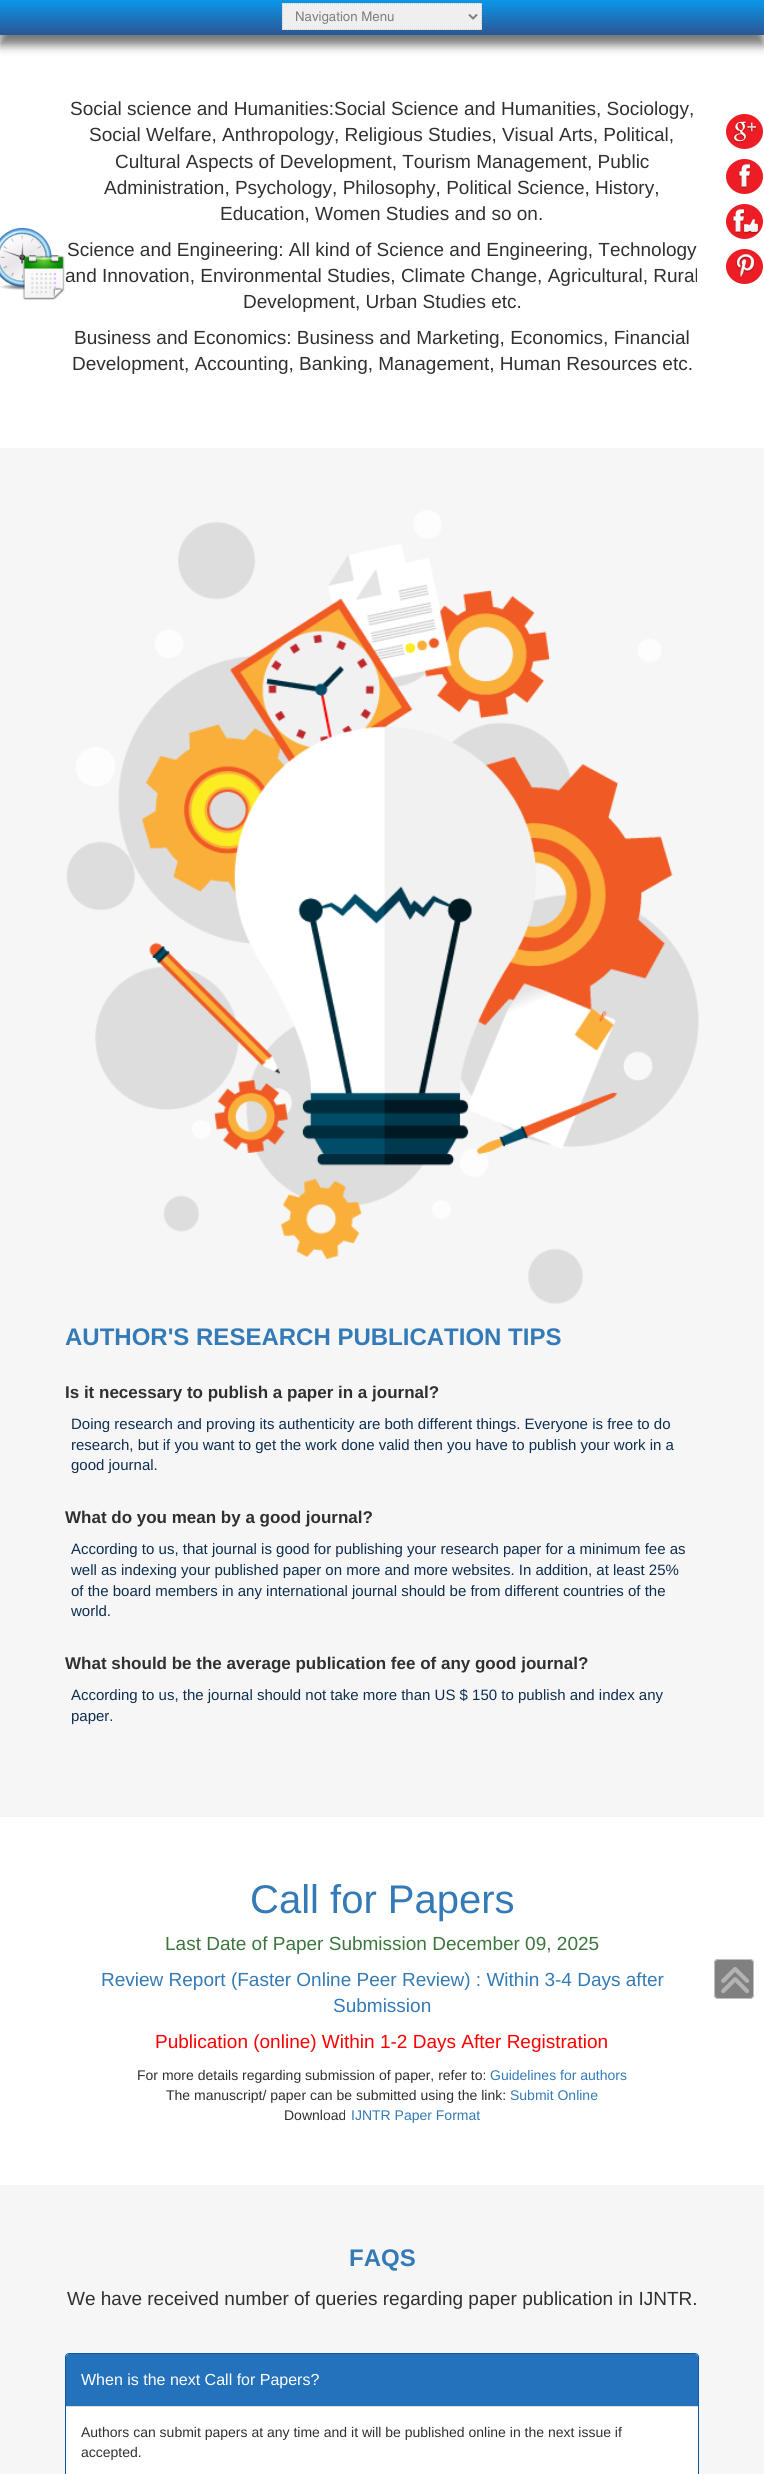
#include <cairo.h>
#include <math.h>
#include <stddef.h>


static void set_color(cairo_t *cr, unsigned color) {
    cairo_set_source_rgb(cr, (color >> 16) / 255.0, (color >> 8 & 255) / 255.0, (color & 255) / 255.0);
}

static void draw_text(cairo_t *cr, double x, double y, const char *s, const char *family, double size, int italic, int bold, unsigned color) {
    cairo_select_font_face(cr, family, italic ? CAIRO_FONT_SLANT_ITALIC : CAIRO_FONT_SLANT_NORMAL,
        bold ? CAIRO_FONT_WEIGHT_BOLD : CAIRO_FONT_WEIGHT_NORMAL);
    cairo_set_font_size(cr, size);
    set_color(cr, color);
    cairo_move_to(cr, x, y);
    cairo_show_text(cr, s);
}

static void fill_rect(cairo_t *cr, double x, double y, double w, double h, unsigned color) {
    set_color(cr, color);
    cairo_rectangle(cr, x, y, w, h);
    cairo_fill(cr);
}

static void rounded_rect(cairo_t *cr, double x, double y, double w, double h, double r) {
    cairo_new_sub_path(cr);
    cairo_arc(cr, x + w - r, y + h - r, r, 0, M_PI / 2);
    cairo_arc(cr, x + r, y + h - r, r, M_PI / 2, M_PI);
    cairo_arc(cr, x + r, y + r, r, M_PI, 1.5 * M_PI);
    cairo_arc(cr, x + w - r, y + r, r, 1.5 * M_PI, 2 * M_PI);
    cairo_close_path(cr);
}

static void draw_shadow(cairo_t *cr, double x, double y, double w, double h, double r, double blur, double alpha) {
    cairo_push_group_with_content(cr, CAIRO_CONTENT_ALPHA);
    cairo_set_operator(cr, CAIRO_OPERATOR_SOURCE);
    for (int i = 15; i >= -15 && fmin(w, h) + blur * i / 3 > 0; i -= 2) {
        double e = blur * i / 6;
        cairo_set_source_rgba(cr, 0, 0, 0, alpha * erfc((i - 1) / 8.5) / 2);
        rounded_rect(cr, x - e, y - e, w + 2 * e, h + 2 * e, fmax(0, fmin(r + e + blur * .6, fmin(w, h) / 2 + e)));
        cairo_fill(cr);
    }
    cairo_pattern_t *soft = cairo_pop_group(cr);
    cairo_mask(cr, soft);
    cairo_pattern_destroy(soft);
}

static void draw_image(cairo_t *cr, const char *path, double x, double y, double w, double h) {
    cairo_surface_t *image = cairo_image_surface_create_from_png(path);
    cairo_save(cr);
    cairo_set_source_surface(cr, image, x, y);
    cairo_rectangle(cr, x, y, w, h);
    cairo_fill(cr);
    cairo_restore(cr);
    cairo_surface_destroy(image);
}

int main(void) {
    cairo_surface_t *surface = cairo_image_surface_create(CAIRO_FORMAT_RGB24, 764, 2474);
    cairo_t *cr = cairo_create(surface);
    cairo_font_options_t *options = cairo_font_options_create();
    cairo_font_options_set_hint_metrics(options, CAIRO_HINT_METRICS_OFF);
    cairo_font_options_set_hint_style(options, CAIRO_HINT_STYLE_NONE);
    cairo_set_font_options(cr, options);
    cairo_set_miter_limit(cr, 4);
    cairo_pattern_t *gradient;
    set_color(cr, 0xFFFFFF);
    cairo_paint(cr);
    set_color(cr, 0x777777);
    draw_shadow(cr, 0, 10, 764, 35, 0, 5, 1);
    gradient = cairo_pattern_create_linear(382, 0, 382, 35);
    cairo_pattern_add_color_stop_rgba(gradient, 0, 0.043, 0.592, 0.91, 1);
    cairo_pattern_add_color_stop_rgba(gradient, 1, 0.169, 0.337, 0.584, 1);
    cairo_set_source(cr, gradient);
    cairo_pattern_destroy(gradient);
    cairo_rectangle(cr, 0, 0, 764, 35);
    cairo_fill(cr);
    fill_rect(cr, 282, 3, 200, 27, 0xEFEFEF);
    cairo_new_path(cr);
    cairo_move_to(cr, 282, 3.5);
    cairo_line_to(cr, 482, 3.5);
    set_color(cr, 0xCCCCCC);
    cairo_set_line_width(cr, 1);
    cairo_set_dash(cr, (double[]){1, 1}, 2, 0);
    cairo_stroke(cr);
    cairo_new_path(cr);
    cairo_move_to(cr, 481.5, 3);
    cairo_line_to(cr, 481.5, 30);
    cairo_stroke(cr);
    cairo_new_path(cr);
    cairo_move_to(cr, 282, 29.5);
    cairo_line_to(cr, 482, 29.5);
    cairo_stroke(cr);
    cairo_new_path(cr);
    cairo_move_to(cr, 282.5, 3);
    cairo_line_to(cr, 282.5, 30);
    cairo_stroke(cr);
    cairo_new_path(cr);
    cairo_move_to(cr, 469, 14.5);
    cairo_line_to(cr, 473, 18.5);
    cairo_line_to(cr, 477, 14.5);
    set_color(cr, 0x807F7F);
    cairo_set_line_width(cr, 2);
    cairo_set_dash(cr, NULL, 0, 0);
    cairo_stroke(cr);
    draw_text(cr, 295, 21, "Navigation Menu", "Helvetica", 13.25, 0, 0, 0x807F7F);
    draw_image(cr, "assets/img1.png", 0, 228, 65, 72);
    draw_text(cr, 70, 115, "Social science and Humanities:Social Science and Humanities, Sociology,", "Liberation Sans", 19, 0, 0, 0x303030);
    draw_text(cr, 89, 141, "Social Welfare, Anthropology, Religious Studies, Visual Arts, Political,", "Liberation Sans", 19, 0, 0, 0x303030);
    draw_text(cr, 115, 168, "Cultural Aspects of Development, Tourism Management, Public", "Liberation Sans", 19, 0, 0, 0x303030);
    draw_text(cr, 104, 194, "Administration, Psychology, Philosophy, Political Science, History,", "Liberation Sans", 19, 0, 0, 0x303030);
    draw_text(cr, 220, 220, "Education, Women Studies and so on.", "Liberation Sans", 19, 0, 0, 0x303030);
    draw_text(cr, 67, 256, "Science and Engineering: All kind of Science and Engineering, Technology", "Liberation Sans", 19, 0, 0, 0x303030);
    draw_text(cr, 65, 282, "and Innovation, Environmental Studies, Climate Change, Agricultural, Rural", "Liberation Sans", 19, 0, 0, 0x303030);
    draw_text(cr, 243, 308, "Development, Urban Studies etc.", "Liberation Sans", 19, 0, 0, 0x303030);
    draw_text(cr, 74, 344, "Business and Economics: Business and Marketing, Economics, Financial", "Liberation Sans", 19, 0, 0, 0x303030);
    draw_text(cr, 72, 370, "Development, Accounting, Banking, Management, Human Resources etc.", "Liberation Sans", 19, 0, 0, 0x303030);
    set_color(cr, 0xEE1D25);
    cairo_new_path(cr);
    cairo_move_to(cr, 744.5, 114);
    cairo_curve_to(cr, 754.5, 114, 763, 122, 763, 131.5);
    cairo_curve_to(cr, 763, 141, 754.5, 149, 744.5, 149);
    cairo_curve_to(cr, 734.5, 149, 726, 141, 726, 131.5);
    cairo_curve_to(cr, 726, 122, 734.5, 114, 744.5, 114);
    cairo_close_path(cr);
    cairo_fill(cr);
    draw_image(cr, "assets/img2.png", 733, 121, 24, 22);
    cairo_new_path(cr);
    cairo_move_to(cr, 744.5, 159);
    cairo_curve_to(cr, 754.5, 159, 763, 167, 763, 176.5);
    cairo_curve_to(cr, 763, 186, 754.5, 194, 744.5, 194);
    cairo_curve_to(cr, 734.5, 194, 726, 186, 726, 176.5);
    cairo_curve_to(cr, 726, 167, 734.5, 159, 744.5, 159);
    cairo_close_path(cr);
    cairo_fill(cr);
    draw_image(cr, "assets/img3.png", 738, 164, 13, 25);
    cairo_new_path(cr);
    cairo_move_to(cr, 744.5, 204);
    cairo_curve_to(cr, 754.5, 204, 763, 212, 763, 221.5);
    cairo_curve_to(cr, 763, 231, 754.5, 239, 744.5, 239);
    cairo_curve_to(cr, 734.5, 239, 726, 231, 726, 221.5);
    cairo_curve_to(cr, 726, 212, 734.5, 204, 744.5, 204);
    cairo_close_path(cr);
    cairo_fill(cr);
    draw_image(cr, "assets/img4.png", 732, 209, 27, 25);
    cairo_new_path(cr);
    cairo_move_to(cr, 744.5, 249);
    cairo_curve_to(cr, 754.5, 249, 763, 257, 763, 266.5);
    cairo_curve_to(cr, 763, 276, 754.5, 284, 744.5, 284);
    cairo_curve_to(cr, 734.5, 284, 726, 276, 726, 266.5);
    cairo_curve_to(cr, 726, 257, 734.5, 249, 744.5, 249);
    cairo_close_path(cr);
    cairo_fill(cr);
    draw_image(cr, "assets/img5.png", 736, 254, 19, 25);
    fill_rect(cr, 0, 448, 764, 1369, 0xF6F6F6);
    draw_image(cr, "assets/img6.png", 66, 510, 633, 794);
    draw_text(cr, 65, 1345, "AUTHOR'S RESEARCH PUBLICATION TIPS", "Liberation Sans", 24, 0, 1, 0x337AB7);
    draw_text(cr, 65, 1398, "Is it necessary to publish a paper in a journal?", "Liberation Sans", 17, 0, 1, 0x303030);
    draw_text(cr, 71, 1429, "Doing research and proving its authenticity are both different things. Everyone is free to do", "Liberation Sans", 15, 0, 0, 0x0E2E50);
    draw_text(cr, 71, 1450, "research, but if you want to get the work done valid then you have to publish your work in a", "Liberation Sans", 15, 0, 0, 0x0E2E50);
    draw_text(cr, 71, 1470, "good journal.", "Liberation Sans", 15, 0, 0, 0x0E2E50);
    draw_text(cr, 65, 1523, "What do you mean by a good journal?", "Liberation Sans", 17, 0, 1, 0x303030);
    draw_text(cr, 71, 1554, "According to us, that journal is good for publishing your research paper for a minimum fee as", "Liberation Sans", 15, 0, 0, 0x0E2E50);
    draw_text(cr, 71, 1575, "well as indexing your published paper on more and more websites. In addition, at least 25%", "Liberation Sans", 15, 0, 0, 0x0E2E50);
    draw_text(cr, 71, 1596, "of the board members in any international journal should be from different countries of the", "Liberation Sans", 15, 0, 0, 0x0E2E50);
    draw_text(cr, 71, 1616, "world.", "Liberation Sans", 15, 0, 0, 0x0E2E50);
    draw_text(cr, 65, 1669, "What should be the average publication fee of any good journal?", "Liberation Sans", 17, 0, 1, 0x303030);
    draw_text(cr, 71, 1700, "According to us, the journal should not take more than US $ 150 to publish and index any", "Liberation Sans", 15, 0, 0, 0x0E2E50);
    draw_text(cr, 71, 1721, "paper.", "Liberation Sans", 15, 0, 0, 0x0E2E50);
    draw_text(cr, 250, 1913, "Call for Papers", "Liberation Sans", 40, 0, 0, 0x337AB7);
    draw_text(cr, 165, 1950, "Last Date of Paper Submission December 09, 2025", "Liberation Sans", 19, 0, 0, 0x3C763D);
    draw_text(cr, 101, 1986, "Review Report (Faster Online Peer Review) : Within 3-4 Days after", "Liberation Sans", 19, 0, 0, 0x337AB7);
    draw_text(cr, 333, 2012, "Submission", "Liberation Sans", 19, 0, 0, 0x337AB7);
    draw_text(cr, 155, 2048, "Publication (online) Within 1-2 Days After Registration", "Liberation Sans", 19, 0, 0, 0xFF0000);
    draw_text(cr, 137, 2080, "For more details regarding submission of paper, refer to:", "Liberation Sans", 14, 0, 0, 0x303030);
    draw_text(cr, 490, 2080, "Guidelines for authors", "Liberation Sans", 14, 0, 0, 0x337AB7);
    draw_text(cr, 166, 2100, "The manuscript/ paper can be submitted using the link:", "Liberation Sans", 14, 0, 0, 0x303030);
    draw_text(cr, 510, 2100, "Submit Online", "Liberation Sans", 14, 0, 0, 0x337AB7);
    draw_text(cr, 284, 2120, "Download", "Liberation Sans", 14, 0, 0, 0x303030);
    draw_text(cr, 351, 2120, "IJNTR Paper Format", "Liberation Sans", 14, 0, 0, 0x337AB7);
    set_color(cr, 0x808080);
    rounded_rect(cr, 714, 1959, 40, 40, 4);
    cairo_fill(cr);
    draw_image(cr, "assets/img7.png", 721, 1967, 28, 27);
    rounded_rect(cr, 714.5, 1959.5, 39, 39, 3.5);
    set_color(cr, 0xC0C0C0);
    cairo_set_line_width(cr, 1);
    cairo_stroke(cr);
    fill_rect(cr, 0, 2185, 764, 289, 0xF6F6F6);
    draw_text(cr, 349, 2266, "FAQS", "Liberation Sans", 24, 0, 1, 0x337AB7);
    draw_text(cr, 67, 2305, "We have received number of queries regarding paper publication in IJNTR.", "Liberation Sans", 19, 0, 0, 0x303030);
    set_color(cr, 0xFFFFFF);
    rounded_rect(cr, 65.5, 2353.5, 633, 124, 3.5);
    cairo_fill_preserve(cr);
    set_color(cr, 0x095AA5);
    cairo_stroke(cr);
    set_color(cr, 0x2472BB);
    cairo_new_path(cr);
    cairo_move_to(cr, 69, 2354);
    cairo_line_to(cr, 695, 2354);
    cairo_curve_to(cr, 696.5, 2354, 698, 2355.5, 698, 2357);
    cairo_line_to(cr, 698, 2406);
    cairo_line_to(cr, 66, 2406);
    cairo_line_to(cr, 66, 2357);
    cairo_curve_to(cr, 66, 2355.5, 67.5, 2354, 69, 2354);
    cairo_close_path(cr);
    cairo_fill(cr);
    draw_text(cr, 81, 2385, "When is the next Call for Papers?", "Liberation Sans", 16, 0, 0, 0xFFFFFF);
    fill_rect(cr, 66, 2406, 632, 1, 0xDDDDDD);
    draw_text(cr, 81, 2437, "Authors can submit papers at any time and it will be published online in the next issue if", "Liberation Sans", 14, 0, 0, 0x303030);
    draw_text(cr, 81, 2457, "accepted.", "Liberation Sans", 14, 0, 0, 0x303030);
    cairo_surface_write_to_png(surface, "output.png");
    cairo_font_options_destroy(options);
    cairo_destroy(cr);
    cairo_surface_destroy(surface);
    return 0;
}
